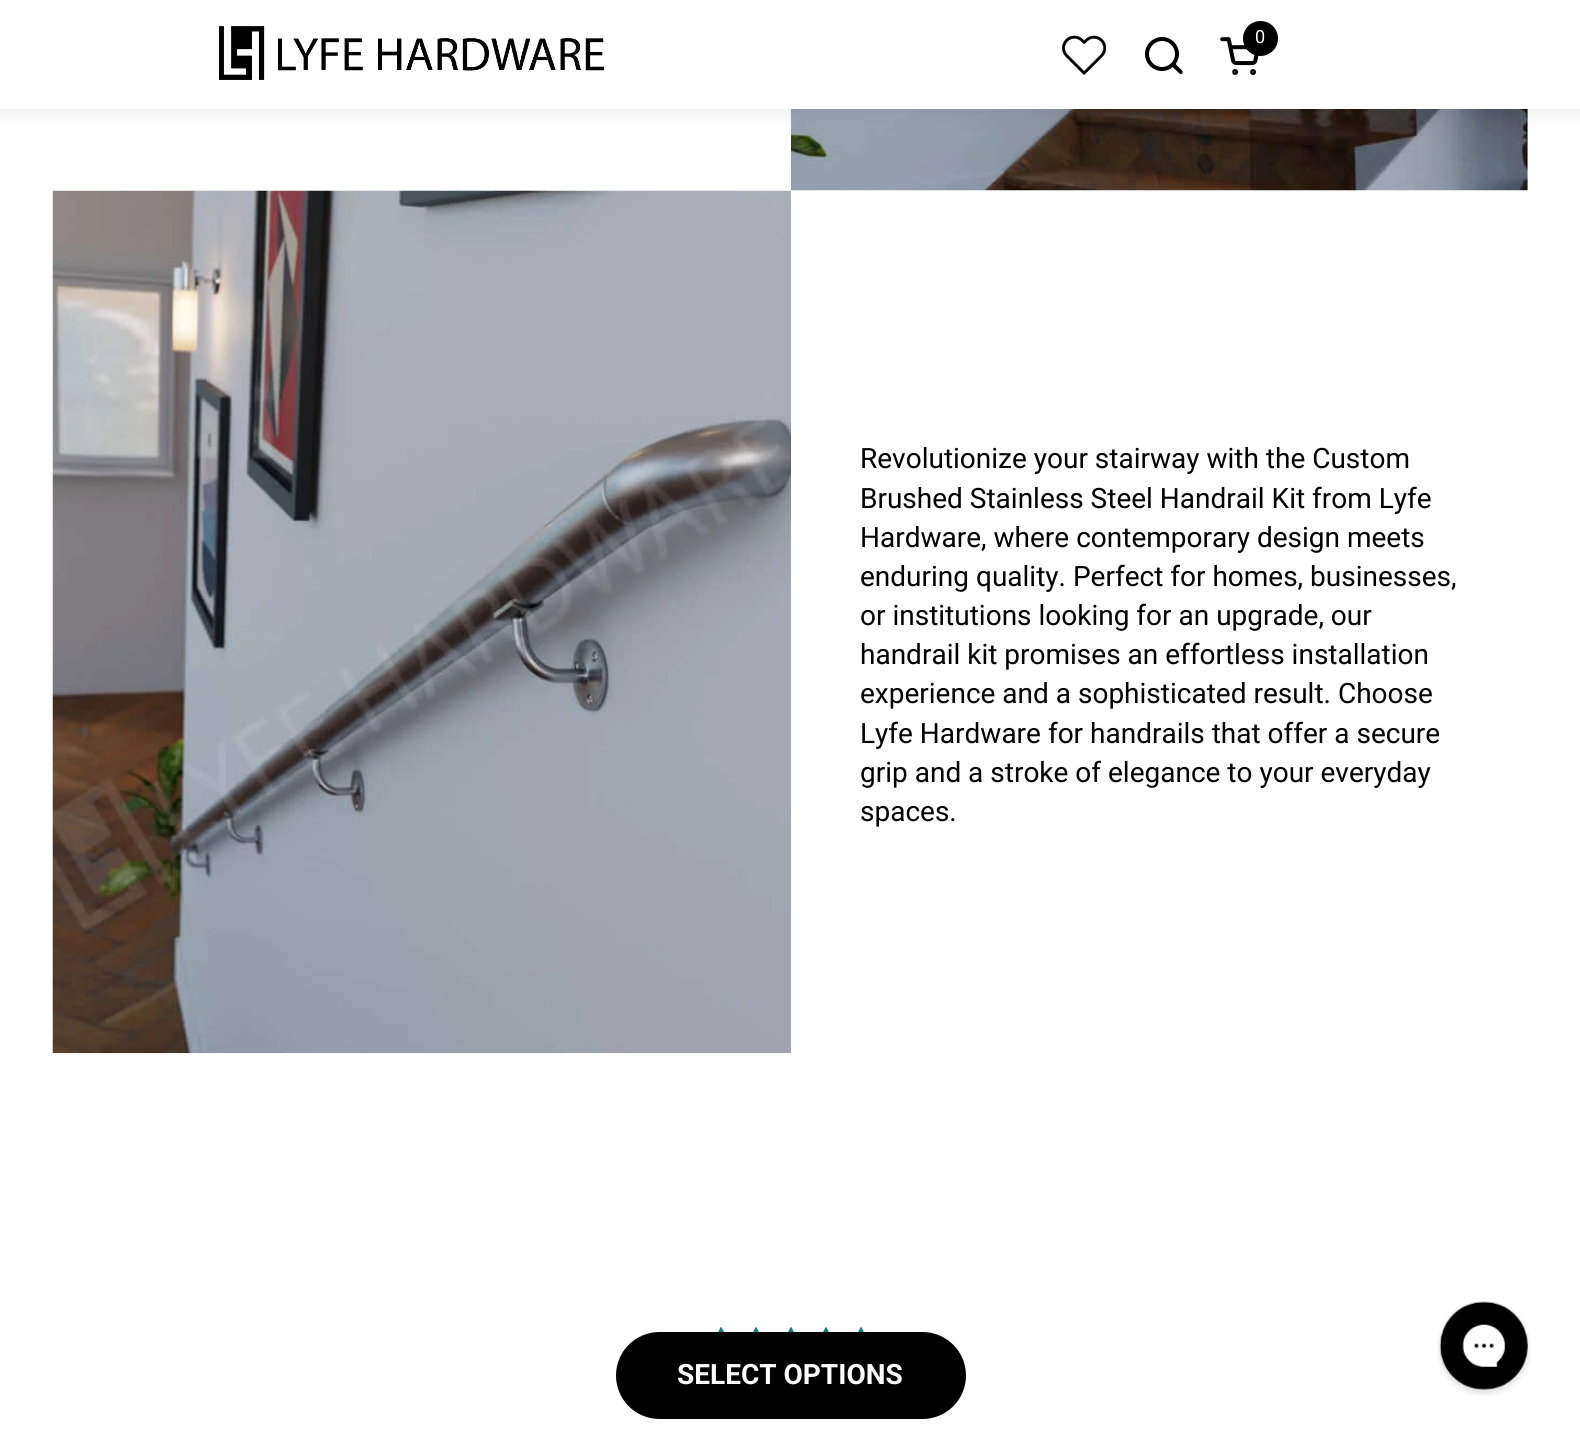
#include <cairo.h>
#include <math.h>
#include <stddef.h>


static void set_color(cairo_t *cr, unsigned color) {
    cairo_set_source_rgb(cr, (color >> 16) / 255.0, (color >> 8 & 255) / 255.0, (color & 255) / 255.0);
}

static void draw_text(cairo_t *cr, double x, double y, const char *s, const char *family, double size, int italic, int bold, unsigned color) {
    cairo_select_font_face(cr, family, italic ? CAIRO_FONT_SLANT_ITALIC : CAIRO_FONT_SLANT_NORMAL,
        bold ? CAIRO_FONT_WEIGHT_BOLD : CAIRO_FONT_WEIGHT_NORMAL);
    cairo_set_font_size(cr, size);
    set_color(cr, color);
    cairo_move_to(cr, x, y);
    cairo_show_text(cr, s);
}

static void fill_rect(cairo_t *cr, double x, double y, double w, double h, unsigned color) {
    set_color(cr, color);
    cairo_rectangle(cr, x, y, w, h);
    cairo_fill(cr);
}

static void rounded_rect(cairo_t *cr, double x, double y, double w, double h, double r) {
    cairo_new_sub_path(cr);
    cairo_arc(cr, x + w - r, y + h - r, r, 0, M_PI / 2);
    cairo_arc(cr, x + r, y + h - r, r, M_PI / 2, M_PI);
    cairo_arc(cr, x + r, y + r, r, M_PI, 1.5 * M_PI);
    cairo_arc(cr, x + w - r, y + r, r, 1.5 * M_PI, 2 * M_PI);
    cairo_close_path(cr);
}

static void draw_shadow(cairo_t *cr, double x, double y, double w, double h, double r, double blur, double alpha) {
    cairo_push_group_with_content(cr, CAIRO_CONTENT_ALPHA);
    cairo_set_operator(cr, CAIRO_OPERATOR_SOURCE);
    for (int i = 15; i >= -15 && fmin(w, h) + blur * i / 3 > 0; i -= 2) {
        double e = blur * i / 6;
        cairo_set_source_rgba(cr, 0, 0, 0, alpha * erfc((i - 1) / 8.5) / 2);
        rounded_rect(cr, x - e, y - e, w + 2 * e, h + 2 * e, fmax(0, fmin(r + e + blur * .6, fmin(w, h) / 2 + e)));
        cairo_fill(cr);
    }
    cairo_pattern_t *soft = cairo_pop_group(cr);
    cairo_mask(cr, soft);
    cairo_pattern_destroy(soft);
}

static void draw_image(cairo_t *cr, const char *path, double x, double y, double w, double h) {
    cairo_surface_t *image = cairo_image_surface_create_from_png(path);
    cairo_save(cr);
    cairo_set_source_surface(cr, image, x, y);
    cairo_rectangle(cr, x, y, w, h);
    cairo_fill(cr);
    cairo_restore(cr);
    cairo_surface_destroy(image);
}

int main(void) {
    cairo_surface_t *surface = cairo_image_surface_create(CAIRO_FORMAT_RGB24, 1580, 1436);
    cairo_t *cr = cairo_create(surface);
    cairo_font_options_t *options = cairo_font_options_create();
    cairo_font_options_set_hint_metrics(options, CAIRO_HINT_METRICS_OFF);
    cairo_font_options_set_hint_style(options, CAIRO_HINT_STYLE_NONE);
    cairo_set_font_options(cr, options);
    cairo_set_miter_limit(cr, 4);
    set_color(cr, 0xFFFFFF);
    cairo_paint(cr);
    draw_image(cr, "assets/img4.png", 791, 109, 737, 82);
    set_color(cr, 0x000000);
    draw_shadow(cr, -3, 0, 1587, 116, 0, 9, 0.06);
    fill_rect(cr, 0, 0, 1580, 109, 0xFFFFFF);
    draw_image(cr, "assets/img1.png", 219, 26, 385, 54);
    draw_image(cr, "assets/img2.png", 1062, 35, 44, 40);
    cairo_arc(cr, 1162, 54, 15, 0, 2 * M_PI);
    set_color(cr, 0x000000);
    cairo_set_line_width(cr, 4);
    cairo_stroke(cr);
    cairo_new_path(cr);
    cairo_move_to(cr, 1175, 63.5);
    cairo_line_to(cr, 1173.5, 62.5);
    cairo_line_to(cr, 1171, 65);
    cairo_line_to(cr, 1172, 66.5);
    cairo_close_path(cr);
    cairo_move_to(cr, 1179.5, 73.5);
    cairo_curve_to(cr, 1181, 75.5, 1184, 72.5, 1182, 70.5);
    cairo_close_path(cr);
    cairo_move_to(cr, 1172, 66.5);
    cairo_line_to(cr, 1179.5, 73.5);
    cairo_line_to(cr, 1182, 70.5);
    cairo_line_to(cr, 1175, 63.5);
    cairo_close_path(cr);
    cairo_fill(cr);
    cairo_arc(cr, 1260.5, 38.5, 17.5, 0, 2 * M_PI);
    cairo_fill(cr);
    draw_text(cr, 1255, 43, "0", "Roboto", 18, 0, 0, 0xFFFFFF);
    draw_image(cr, "assets/img3.png", 1220, 37, 39, 38);
    draw_image(cr, "assets/img5.png", 52, 190, 739, 864);
    draw_text(cr, 860, 468, "Revolutionize your stairway with the Custom", "Roboto", 28, 0, 0, 0x000000);
    draw_text(cr, 860, 508, "Brushed Stainless Steel Handrail Kit from Lyfe", "Roboto", 28, 0, 0, 0x000000);
    draw_text(cr, 860, 547, "Hardware, where contemporary design meets", "Roboto", 28, 0, 0, 0x000000);
    draw_text(cr, 860, 586, "enduring quality. Perfect for homes, businesses,", "Roboto", 28, 0, 0, 0x000000);
    draw_text(cr, 860, 625, "or institutions looking for an upgrade, our", "Roboto", 28, 0, 0, 0x000000);
    draw_text(cr, 860, 664, "handrail kit promises an effortless installation", "Roboto", 28, 0, 0, 0x000000);
    draw_text(cr, 860, 703, "experience and a sophisticated result. Choose", "Roboto", 28, 0, 0, 0x000000);
    draw_text(cr, 860, 743, "Lyfe Hardware for handrails that offer a secure", "Roboto", 28, 0, 0, 0x000000);
    draw_text(cr, 860, 782, "grip and a stroke of elegance to your everyday", "Roboto", 28, 0, 0, 0x000000);
    draw_text(cr, 860, 821, "spaces.", "Roboto", 28, 0, 0, 0x000000);
    draw_image(cr, "assets/img6.png", 718, 1327, 6, 5);
    draw_image(cr, "assets/img6.png", 753, 1327, 6, 5);
    draw_image(cr, "assets/img6.png", 788, 1327, 6, 5);
    draw_image(cr, "assets/img6.png", 823, 1327, 6, 5);
    draw_image(cr, "assets/img6.png", 858, 1327, 6, 5);
    rounded_rect(cr, 617, 1333, 348, 85, 42.5);
    cairo_fill_preserve(cr);
    cairo_set_line_width(cr, 2);
    cairo_stroke(cr);
    draw_text(cr, 677, 1384, "SELECT OPTIONS", "Roboto", 28, 0, 1, 0xFFFFFF);
    draw_image(cr, "assets/img7.png", 1437, 1301, 94, 95);
    cairo_surface_write_to_png(surface, "output.png");
    cairo_font_options_destroy(options);
    cairo_destroy(cr);
    cairo_surface_destroy(surface);
    return 0;
}
